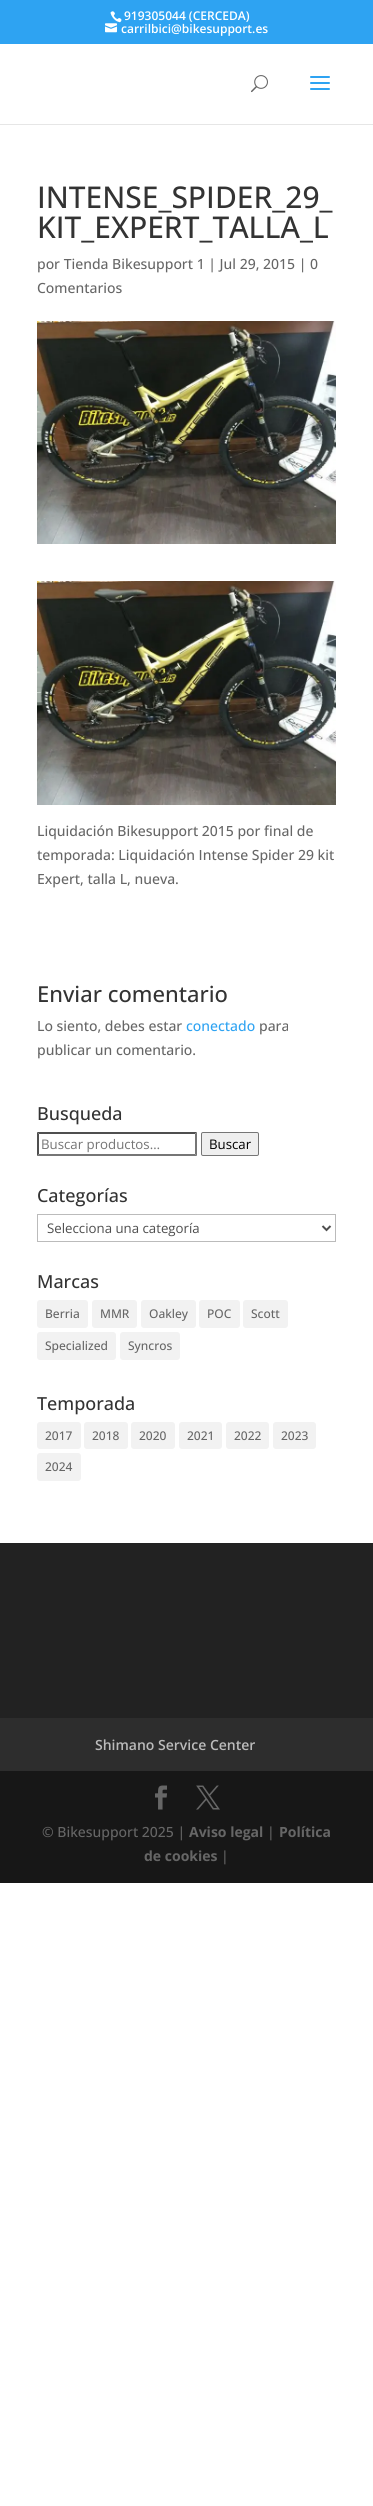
#include <cairo.h>
#include <math.h>
#include <stddef.h>


static void set_color(cairo_t *cr, unsigned color) {
    cairo_set_source_rgb(cr, (color >> 16) / 255.0, (color >> 8 & 255) / 255.0, (color & 255) / 255.0);
}

static void draw_text(cairo_t *cr, double x, double y, const char *s, const char *family, double size, int italic, int bold, unsigned color) {
    cairo_select_font_face(cr, family, italic ? CAIRO_FONT_SLANT_ITALIC : CAIRO_FONT_SLANT_NORMAL,
        bold ? CAIRO_FONT_WEIGHT_BOLD : CAIRO_FONT_WEIGHT_NORMAL);
    cairo_set_font_size(cr, size);
    set_color(cr, color);
    cairo_move_to(cr, x, y);
    cairo_show_text(cr, s);
}

static void fill_rect(cairo_t *cr, double x, double y, double w, double h, unsigned color) {
    set_color(cr, color);
    cairo_rectangle(cr, x, y, w, h);
    cairo_fill(cr);
}

static void rounded_rect(cairo_t *cr, double x, double y, double w, double h, double r) {
    cairo_new_sub_path(cr);
    cairo_arc(cr, x + w - r, y + h - r, r, 0, M_PI / 2);
    cairo_arc(cr, x + r, y + h - r, r, M_PI / 2, M_PI);
    cairo_arc(cr, x + r, y + r, r, M_PI, 1.5 * M_PI);
    cairo_arc(cr, x + w - r, y + r, r, 1.5 * M_PI, 2 * M_PI);
    cairo_close_path(cr);
}

static void draw_image(cairo_t *cr, const char *path, double x, double y, double w, double h) {
    cairo_surface_t *image = cairo_image_surface_create_from_png(path);
    cairo_save(cr);
    cairo_set_source_surface(cr, image, x, y);
    cairo_rectangle(cr, x, y, w, h);
    cairo_fill(cr);
    cairo_restore(cr);
    cairo_surface_destroy(image);
}

int main(void) {
    cairo_surface_t *surface = cairo_image_surface_create(CAIRO_FORMAT_RGB24, 373, 2506);
    cairo_t *cr = cairo_create(surface);
    cairo_font_options_t *options = cairo_font_options_create();
    cairo_font_options_set_hint_metrics(options, CAIRO_HINT_METRICS_OFF);
    cairo_font_options_set_hint_style(options, CAIRO_HINT_STYLE_NONE);
    cairo_set_font_options(cr, options);
    cairo_set_miter_limit(cr, 4);
    set_color(cr, 0xFFFFFF);
    cairo_paint(cr);
    fill_rect(cr, 0, 0, 373, 44, 0x2EA3F2);
    draw_image(cr, "assets/img1.png", 110, 11, 12, 12);
    draw_text(cr, 124, 20, "919305044 (CERCEDA)", "Open Sans SemiBold", 12, 0, 0, 0xFFFFFF);
    draw_image(cr, "assets/img2.png", 105, 23, 12, 10);
    draw_text(cr, 121, 33, "carrilbici@bikesupport.es", "Open Sans SemiBold", 12, 0, 0, 0xFFFFFF);
    fill_rect(cr, 0, 124, 373, 1, 0xE6E6E6);
    draw_image(cr, "assets/img3.png", 251, 75, 17, 18);
    draw_image(cr, "assets/img4.png", 310, 76, 20, 14);
    draw_text(cr, 37, 208, "INTENSE_SPIDER_29_", "Open Sans Medium", 30, 0, 0, 0x333333);
    draw_text(cr, 37, 238, "KIT_EXPERT_TALLA_L", "Open Sans Medium", 30, 0, 0, 0x333333);
    draw_text(cr, 37, 269, "por Tienda Bikesupport 1 | Jul 29, 2015 | 0", "Open Sans Medium", 14, 0, 0, 0x666666);
    draw_text(cr, 37, 293, "Comentarios", "Open Sans Medium", 14, 0, 0, 0x666666);
    draw_image(cr, "assets/img5.png", 37, 321, 299, 223);
    draw_image(cr, "assets/img6.png", 37, 581, 299, 224);
    draw_text(cr, 37, 836, "Liquidación Bikesupport 2015 por final de", "Open Sans Medium", 14, 0, 0, 0x666666);
    draw_text(cr, 37, 860, "temporada: Liquidación Intense Spider 29 kit", "Open Sans Medium", 14, 0, 0, 0x666666);
    draw_text(cr, 37, 884, "Expert, talla L, nueva.", "Open Sans Medium", 14, 0, 0, 0x666666);
    draw_text(cr, 37, 1002, "Enviar comentario", "Open Sans Medium", 22, 0, 0, 0x333333);
    draw_text(cr, 37, 1031, "Lo siento, debes estar", "Open Sans Medium", 14, 0, 0, 0x666666);
    draw_text(cr, 186, 1031, "conectado", "Open Sans Medium", 14, 0, 0, 0x2EA3F2);
    draw_text(cr, 259, 1031, "para", "Open Sans Medium", 14, 0, 0, 0x666666);
    draw_text(cr, 37, 1055, "publicar un comentario.", "Open Sans Medium", 14, 0, 0, 0x666666);
    draw_text(cr, 37, 1120, "Busqueda", "Open Sans Medium", 18, 0, 0, 0x333333);
    set_color(cr, 0x4F4F4F);
    cairo_new_path(cr);
    cairo_move_to(cr, 37, 1132);
    cairo_line_to(cr, 197, 1132);
    cairo_line_to(cr, 195, 1134);
    cairo_line_to(cr, 39, 1134);
    cairo_close_path(cr);
    cairo_fill(cr);
    set_color(cr, 0x767676);
    cairo_new_path(cr);
    cairo_move_to(cr, 197, 1132);
    cairo_line_to(cr, 197, 1156);
    cairo_line_to(cr, 195, 1154);
    cairo_line_to(cr, 195, 1134);
    cairo_close_path(cr);
    cairo_fill(cr);
    cairo_new_path(cr);
    cairo_move_to(cr, 197, 1156);
    cairo_line_to(cr, 37, 1156);
    cairo_line_to(cr, 39, 1154);
    cairo_line_to(cr, 195, 1154);
    cairo_close_path(cr);
    cairo_fill(cr);
    set_color(cr, 0x4F4F4F);
    cairo_new_path(cr);
    cairo_move_to(cr, 37, 1156);
    cairo_line_to(cr, 37, 1132);
    cairo_line_to(cr, 39, 1134);
    cairo_line_to(cr, 39, 1154);
    cairo_close_path(cr);
    cairo_fill(cr);
    draw_text(cr, 41, 1149, "Buscar productos…", "Open Sans", 13.25, 0, 0, 0x757575);
    set_color(cr, 0xEFEFEF);
    rounded_rect(cr, 201.5, 1132.5, 57, 23, 1.5);
    cairo_fill_preserve(cr);
    set_color(cr, 0x767676);
    cairo_set_line_width(cr, 1);
    cairo_stroke(cr);
    draw_text(cr, 209, 1149, "Buscar", "Open Sans", 13.25, 0, 0, 0x000000);
    draw_text(cr, 37, 1202, "Categorías", "Open Sans Medium", 18, 0, 0, 0x333333);
    cairo_rectangle(cr, 37.5, 1214.5, 298, 27);
    set_color(cr, 0xBBBBBB);
    cairo_stroke(cr);
    cairo_new_path(cr);
    cairo_move_to(cr, 322.5, 1226);
    cairo_line_to(cr, 326.5, 1230);
    cairo_line_to(cr, 330.5, 1226);
    set_color(cr, 0x4E4E4E);
    cairo_set_line_width(cr, 2);
    cairo_stroke(cr);
    draw_text(cr, 47, 1233, "Selecciona una categoría", "Open Sans", 13.25, 0, 0, 0x4E4E4E);
    draw_text(cr, 37, 1288, "Marcas", "Open Sans Medium", 18, 0, 0, 0x333333);
    set_color(cr, 0xF2F2F2);
    rounded_rect(cr, 37, 1300, 51, 28, 3);
    cairo_fill(cr);
    draw_text(cr, 45, 1318, "Berria", "Open Sans Medium", 12, 0, 0, 0x666666);
    set_color(cr, 0xF2F2F2);
    rounded_rect(cr, 92, 1300, 45, 28, 3);
    cairo_fill(cr);
    draw_text(cr, 100, 1318, "MMR", "Open Sans Medium", 12, 0, 0, 0x666666);
    set_color(cr, 0xF2F2F2);
    rounded_rect(cr, 141, 1300, 55, 28, 3);
    cairo_fill(cr);
    draw_text(cr, 149, 1318, "Oakley", "Open Sans Medium", 12, 0, 0, 0x666666);
    set_color(cr, 0xF2F2F2);
    rounded_rect(cr, 199, 1300, 41, 28, 3);
    cairo_fill(cr);
    draw_text(cr, 207, 1318, "POC", "Open Sans Medium", 12, 0, 0, 0x666666);
    set_color(cr, 0xF2F2F2);
    rounded_rect(cr, 243, 1300, 45, 28, 3);
    cairo_fill(cr);
    draw_text(cr, 251, 1318, "Scott", "Open Sans Medium", 12, 0, 0, 0x666666);
    set_color(cr, 0xF2F2F2);
    rounded_rect(cr, 37, 1332, 79, 28, 3);
    cairo_fill(cr);
    draw_text(cr, 45, 1350, "Specialized", "Open Sans Medium", 12, 0, 0, 0x666666);
    set_color(cr, 0xF2F2F2);
    rounded_rect(cr, 120, 1332, 60, 28, 3);
    cairo_fill(cr);
    draw_text(cr, 128, 1350, "Syncros", "Open Sans Medium", 12, 0, 0, 0x666666);
    draw_text(cr, 37, 1410, "Temporada", "Open Sans Medium", 18, 0, 0, 0x333333);
    set_color(cr, 0xF2F2F2);
    rounded_rect(cr, 37, 1422, 44, 27, 3);
    cairo_fill(cr);
    draw_text(cr, 45, 1440, "2017", "Open Sans Medium", 12, 0, 0, 0x666666);
    set_color(cr, 0xF2F2F2);
    rounded_rect(cr, 84, 1422, 44, 27, 3);
    cairo_fill(cr);
    draw_text(cr, 92, 1440, "2018", "Open Sans Medium", 12, 0, 0, 0x666666);
    set_color(cr, 0xF2F2F2);
    rounded_rect(cr, 131, 1422, 44, 27, 3);
    cairo_fill(cr);
    draw_text(cr, 139, 1440, "2020", "Open Sans Medium", 12, 0, 0, 0x666666);
    set_color(cr, 0xF2F2F2);
    rounded_rect(cr, 179, 1422, 43, 27, 3);
    cairo_fill(cr);
    draw_text(cr, 187, 1440, "2021", "Open Sans Medium", 12, 0, 0, 0x666666);
    set_color(cr, 0xF2F2F2);
    rounded_rect(cr, 226, 1422, 43, 27, 3);
    cairo_fill(cr);
    draw_text(cr, 234, 1440, "2022", "Open Sans Medium", 12, 0, 0, 0x666666);
    set_color(cr, 0xF2F2F2);
    rounded_rect(cr, 273, 1422, 43, 27, 3);
    cairo_fill(cr);
    draw_text(cr, 281, 1440, "2023", "Open Sans Medium", 12, 0, 0, 0x666666);
    set_color(cr, 0xF2F2F2);
    rounded_rect(cr, 37, 1453, 44, 28, 3);
    cairo_fill(cr);
    draw_text(cr, 45, 1471, "2024", "Open Sans Medium", 12, 0, 0, 0x666666);
    fill_rect(cr, 0, 1543, 373, 175, 0x222222);
    fill_rect(cr, 0, 1718, 373, 53, 0x2D2D2D);
    draw_text(cr, 95, 1750, "Shimano Service Center", "Open Sans SemiBold", 14, 0, 0, 0xBBBBBB);
    fill_rect(cr, 0, 1771, 373, 112, 0x171717);
    draw_image(cr, "assets/img7.png", 155, 1785, 12, 25);
    draw_image(cr, "assets/img8.png", 196, 1785, 24, 25);
    draw_text(cr, 42, 1837, "© Bikesupport 2025 |", "Open Sans Medium", 14, 0, 0, 0x666666);
    draw_text(cr, 189, 1837, "Aviso legal", "Open Sans", 14, 0, 1, 0x666666);
    draw_text(cr, 267, 1837, "|", "Open Sans Medium", 14, 0, 0, 0x666666);
    draw_text(cr, 279, 1837, "Política", "Open Sans", 14, 0, 1, 0x666666);
    draw_text(cr, 144, 1861, "de cookies", "Open Sans", 14, 0, 1, 0x666666);
    draw_text(cr, 221, 1861, "|", "Open Sans Medium", 14, 0, 0, 0x666666);
    cairo_surface_write_to_png(surface, "output.png");
    cairo_font_options_destroy(options);
    cairo_destroy(cr);
    cairo_surface_destroy(surface);
    return 0;
}
